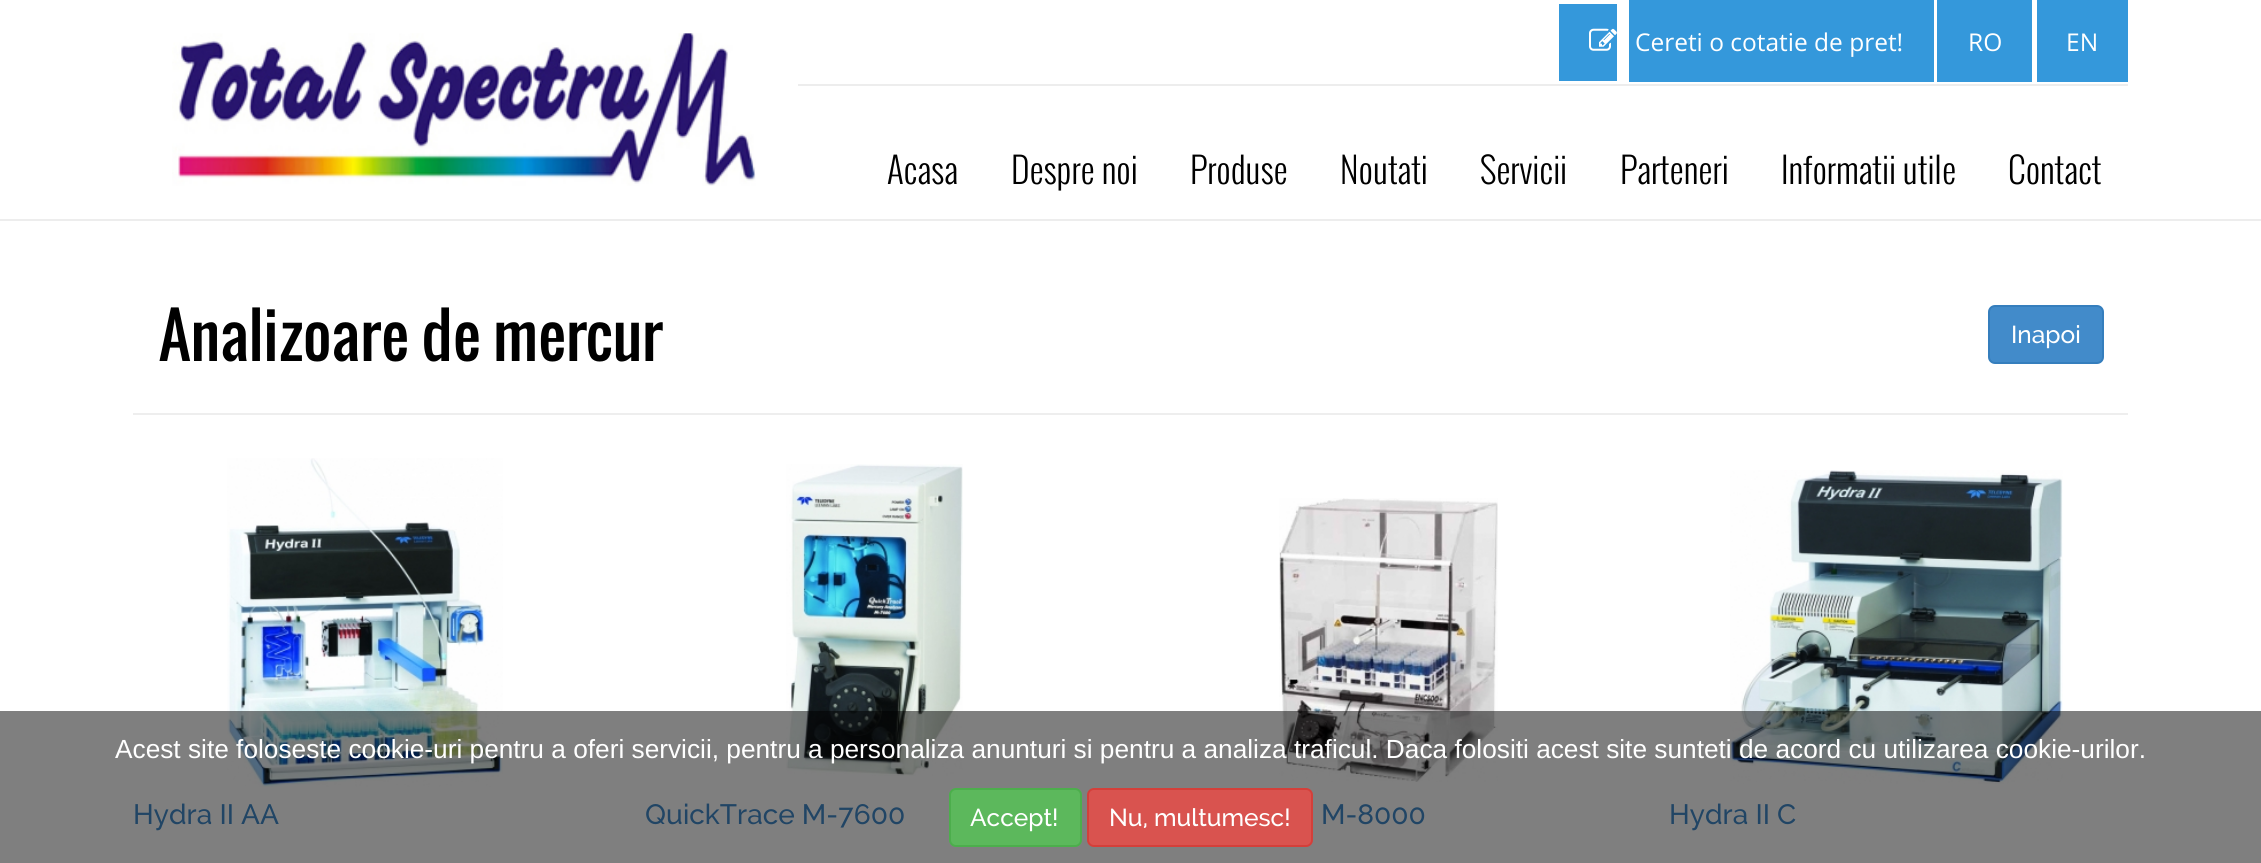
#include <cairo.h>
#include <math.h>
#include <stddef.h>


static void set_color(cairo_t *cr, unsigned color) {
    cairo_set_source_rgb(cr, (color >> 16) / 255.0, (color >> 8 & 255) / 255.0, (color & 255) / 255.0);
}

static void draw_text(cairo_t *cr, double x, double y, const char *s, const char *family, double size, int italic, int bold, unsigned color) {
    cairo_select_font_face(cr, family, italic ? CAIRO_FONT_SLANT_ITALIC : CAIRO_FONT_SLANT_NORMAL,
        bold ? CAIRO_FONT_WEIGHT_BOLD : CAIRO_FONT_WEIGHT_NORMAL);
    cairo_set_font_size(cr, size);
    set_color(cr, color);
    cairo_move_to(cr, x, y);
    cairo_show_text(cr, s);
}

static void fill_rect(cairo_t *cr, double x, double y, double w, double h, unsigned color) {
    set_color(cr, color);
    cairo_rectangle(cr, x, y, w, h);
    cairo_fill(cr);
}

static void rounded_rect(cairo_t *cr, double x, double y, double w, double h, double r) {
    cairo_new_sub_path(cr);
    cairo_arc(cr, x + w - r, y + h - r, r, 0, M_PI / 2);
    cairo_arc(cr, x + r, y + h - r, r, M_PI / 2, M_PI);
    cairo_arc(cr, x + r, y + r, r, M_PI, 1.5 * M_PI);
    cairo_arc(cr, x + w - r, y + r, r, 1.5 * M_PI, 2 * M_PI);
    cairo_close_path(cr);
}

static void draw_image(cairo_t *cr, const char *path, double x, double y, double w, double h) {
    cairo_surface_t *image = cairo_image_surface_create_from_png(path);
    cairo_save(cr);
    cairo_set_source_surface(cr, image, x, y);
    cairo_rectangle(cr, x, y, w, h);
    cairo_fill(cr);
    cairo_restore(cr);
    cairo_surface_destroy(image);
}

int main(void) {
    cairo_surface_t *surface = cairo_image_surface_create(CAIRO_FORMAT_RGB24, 2261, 863);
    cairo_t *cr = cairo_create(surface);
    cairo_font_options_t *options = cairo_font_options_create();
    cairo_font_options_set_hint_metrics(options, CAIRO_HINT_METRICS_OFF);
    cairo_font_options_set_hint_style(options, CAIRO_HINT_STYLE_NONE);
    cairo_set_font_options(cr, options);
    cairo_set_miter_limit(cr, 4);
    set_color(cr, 0xFFFFFF);
    cairo_paint(cr);
    fill_rect(cr, 0, 219, 2261, 2, 0xEDEDED);
    draw_image(cr, "assets/img1.png", 172, 33, 584, 153);
    fill_rect(cr, 798, 84, 1330, 2, 0xEDEDED);
    fill_rect(cr, 1559, 4, 58, 77, 0x3498DB);
    fill_rect(cr, 1629, 0, 305, 82, 0x3498DB);
    draw_image(cr, "assets/img2.png", 1589, 28, 28, 23);
    draw_text(cr, 1635, 51, "Cereti o cotatie de pret!", "Open Sans", 24.5, 0, 0, 0xFFFFFF);
    fill_rect(cr, 1937, 0, 95, 82, 0x3498DB);
    draw_text(cr, 1968, 51, "RO", "Open Sans", 24.5, 0, 0, 0xFFFFFF);
    fill_rect(cr, 2037, 0, 91, 82, 0x3498DB);
    draw_text(cr, 2066, 51, "EN", "Open Sans", 24.5, 0, 0, 0xFFFFFF);
    draw_text(cr, 887, 184, "Acasa", "Oswald Light", 35, 0, 0, 0x000000);
    draw_text(cr, 1011, 184, "Despre noi", "Oswald Light", 35, 0, 0, 0x000000);
    draw_text(cr, 1190, 184, "Produse", "Oswald Light", 35, 0, 0, 0x000000);
    draw_text(cr, 1340, 184, "Noutati", "Oswald Light", 35, 0, 0, 0x000000);
    draw_text(cr, 1480, 184, "Servicii", "Oswald Light", 35, 0, 0, 0x000000);
    draw_text(cr, 1620, 184, "Parteneri", "Oswald Light", 35, 0, 0, 0x000000);
    draw_text(cr, 1781, 184, "Informatii utile", "Oswald Light", 35, 0, 0, 0x000000);
    draw_text(cr, 2008, 184, "Contact", "Oswald Light", 35, 0, 0, 0x000000);
    draw_text(cr, 159, 361, "Analizoare de mercur", "Oswald", 61.25, 0, 0, 0x000000);
    set_color(cr, 0x428BCA);
    rounded_rect(cr, 1989, 306, 114, 57, 6);
    cairo_fill_preserve(cr);
    set_color(cr, 0x357EBD);
    cairo_stroke(cr);
    draw_text(cr, 2011, 343, "Inapoi", "Raleway Medium", 24.5, 0, 0, 0xFFFFFF);
    fill_rect(cr, 133, 413, 1995, 2, 0xEEEEEE);
    draw_image(cr, "assets/img3.png", 227, 458, 276, 329);
    draw_text(cr, 133, 824, "Hydra II AA", "Raleway Medium", 28, 0, 0, 0x428BCA);
    draw_image(cr, "assets/img4.png", 786, 464, 177, 312);
    draw_text(cr, 645, 824, "QuickTrace M-7600", "Raleway Medium", 28, 0, 0, 0x428BCA);
    draw_image(cr, "assets/img5.png", 1279, 498, 219, 284);
    draw_text(cr, 1321, 824, "M-8000", "Raleway Medium", 28, 0, 0, 0x428BCA);
    draw_image(cr, "assets/img6.png", 1730, 470, 333, 314);
    draw_text(cr, 1669, 824, "Hydra II C", "Raleway Medium", 28, 0, 0, 0x428BCA);
    cairo_set_source_rgba(cr, 0, 0, 0, 0.5);
    cairo_rectangle(cr, 0, 711, 2261, 152);
    cairo_fill(cr);
    draw_text(cr, 115, 758, "Acest site foloseste cookie-uri pentru a oferi servicii, pentru a personaliza anunturi si pentru a analiza traficul. Daca folositi acest site sunteti de acord cu utilizarea cookie-urilor.", "Liberation Sans", 26.25, 0, 0, 0xFFFFFF);
    set_color(cr, 0x5CB85C);
    rounded_rect(cr, 950, 789, 131, 57, 6);
    cairo_fill_preserve(cr);
    set_color(cr, 0x4CAE4C);
    cairo_stroke(cr);
    draw_text(cr, 970, 826, "Accept!", "Raleway Medium", 24.5, 0, 0, 0xFFFFFF);
    set_color(cr, 0xD9534F);
    rounded_rect(cr, 1088, 789, 224, 57, 6);
    cairo_fill_preserve(cr);
    set_color(cr, 0xD43F3A);
    cairo_stroke(cr);
    draw_text(cr, 1109, 826, "Nu, multumesc!", "Raleway Medium", 24.5, 0, 0, 0xFFFFFF);
    cairo_surface_write_to_png(surface, "output.png");
    cairo_font_options_destroy(options);
    cairo_destroy(cr);
    cairo_surface_destroy(surface);
    return 0;
}
